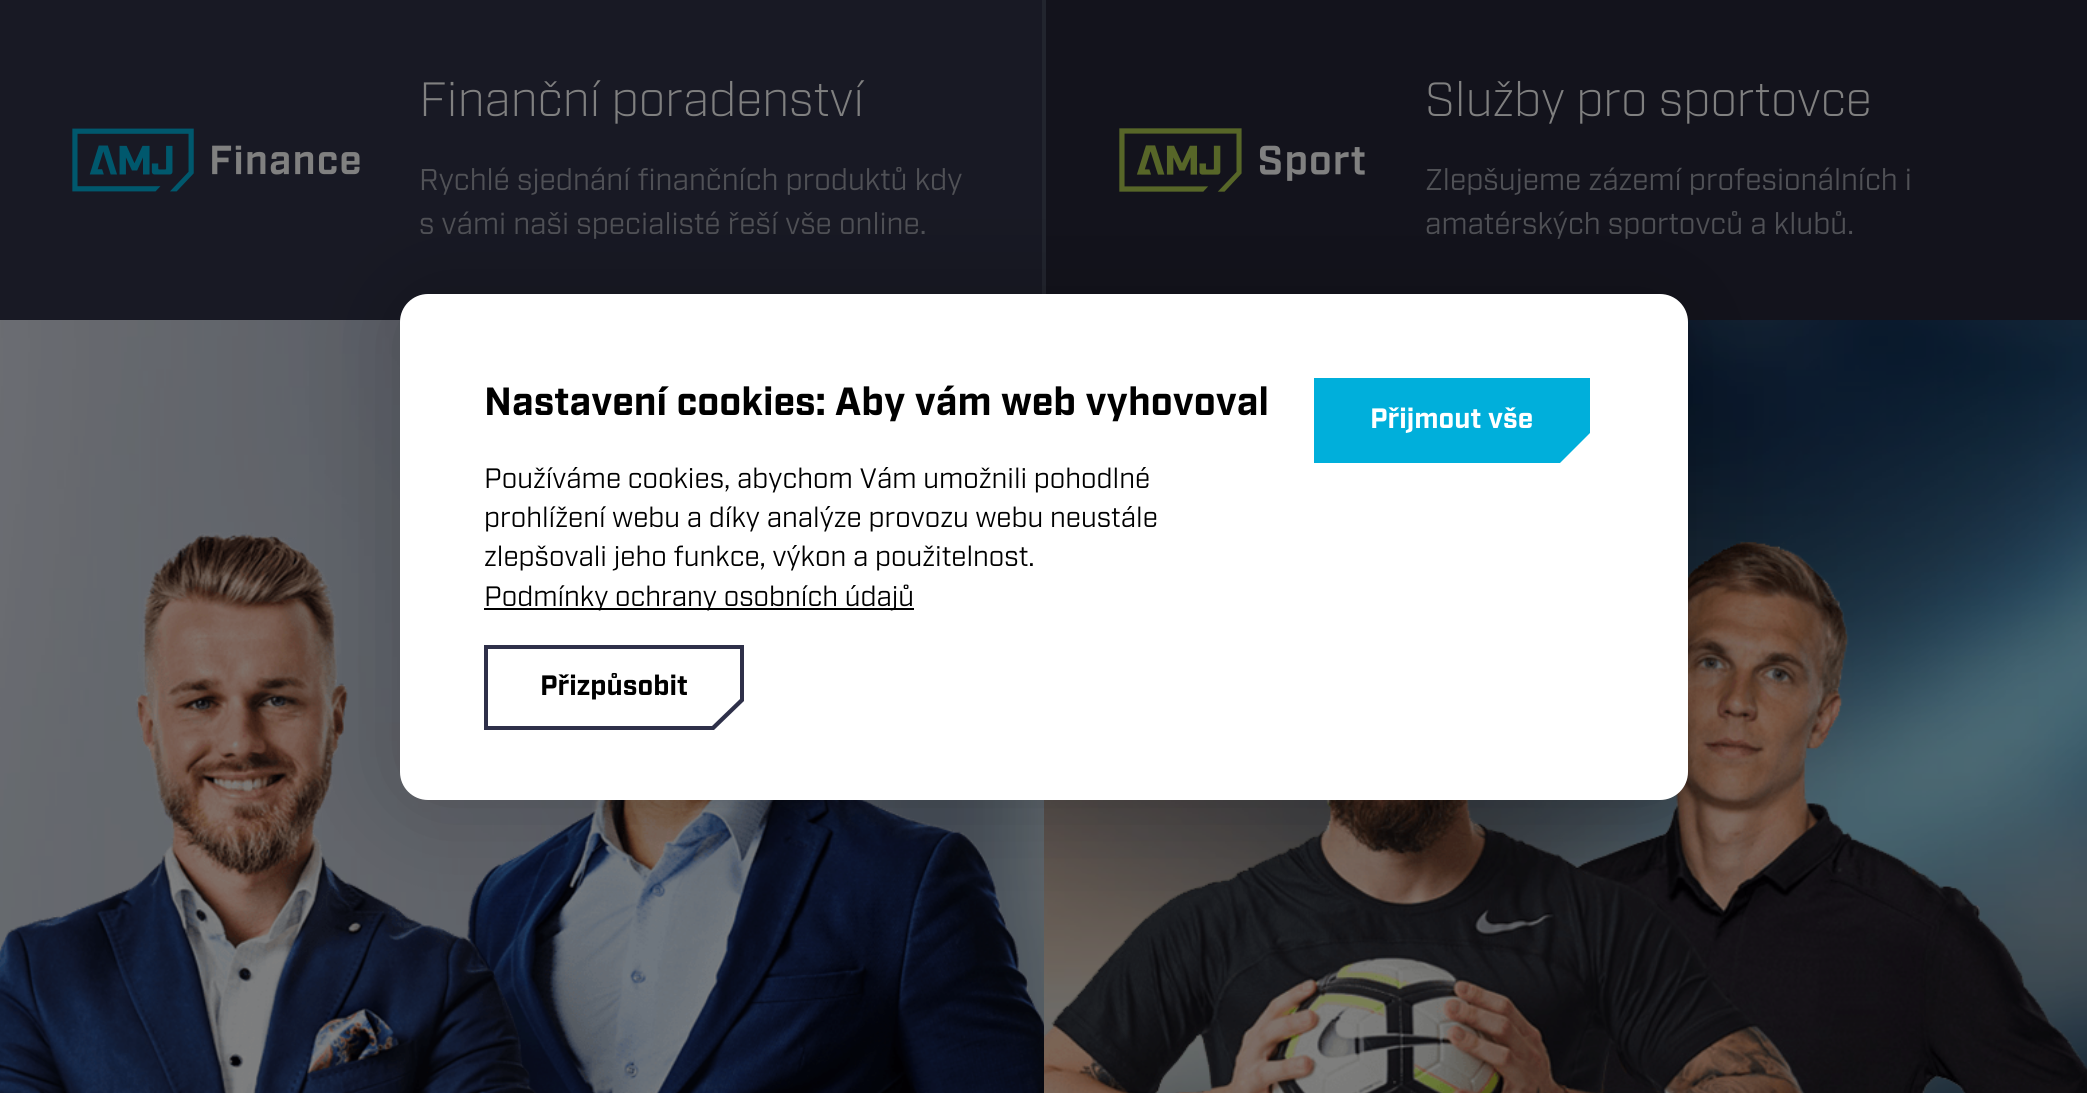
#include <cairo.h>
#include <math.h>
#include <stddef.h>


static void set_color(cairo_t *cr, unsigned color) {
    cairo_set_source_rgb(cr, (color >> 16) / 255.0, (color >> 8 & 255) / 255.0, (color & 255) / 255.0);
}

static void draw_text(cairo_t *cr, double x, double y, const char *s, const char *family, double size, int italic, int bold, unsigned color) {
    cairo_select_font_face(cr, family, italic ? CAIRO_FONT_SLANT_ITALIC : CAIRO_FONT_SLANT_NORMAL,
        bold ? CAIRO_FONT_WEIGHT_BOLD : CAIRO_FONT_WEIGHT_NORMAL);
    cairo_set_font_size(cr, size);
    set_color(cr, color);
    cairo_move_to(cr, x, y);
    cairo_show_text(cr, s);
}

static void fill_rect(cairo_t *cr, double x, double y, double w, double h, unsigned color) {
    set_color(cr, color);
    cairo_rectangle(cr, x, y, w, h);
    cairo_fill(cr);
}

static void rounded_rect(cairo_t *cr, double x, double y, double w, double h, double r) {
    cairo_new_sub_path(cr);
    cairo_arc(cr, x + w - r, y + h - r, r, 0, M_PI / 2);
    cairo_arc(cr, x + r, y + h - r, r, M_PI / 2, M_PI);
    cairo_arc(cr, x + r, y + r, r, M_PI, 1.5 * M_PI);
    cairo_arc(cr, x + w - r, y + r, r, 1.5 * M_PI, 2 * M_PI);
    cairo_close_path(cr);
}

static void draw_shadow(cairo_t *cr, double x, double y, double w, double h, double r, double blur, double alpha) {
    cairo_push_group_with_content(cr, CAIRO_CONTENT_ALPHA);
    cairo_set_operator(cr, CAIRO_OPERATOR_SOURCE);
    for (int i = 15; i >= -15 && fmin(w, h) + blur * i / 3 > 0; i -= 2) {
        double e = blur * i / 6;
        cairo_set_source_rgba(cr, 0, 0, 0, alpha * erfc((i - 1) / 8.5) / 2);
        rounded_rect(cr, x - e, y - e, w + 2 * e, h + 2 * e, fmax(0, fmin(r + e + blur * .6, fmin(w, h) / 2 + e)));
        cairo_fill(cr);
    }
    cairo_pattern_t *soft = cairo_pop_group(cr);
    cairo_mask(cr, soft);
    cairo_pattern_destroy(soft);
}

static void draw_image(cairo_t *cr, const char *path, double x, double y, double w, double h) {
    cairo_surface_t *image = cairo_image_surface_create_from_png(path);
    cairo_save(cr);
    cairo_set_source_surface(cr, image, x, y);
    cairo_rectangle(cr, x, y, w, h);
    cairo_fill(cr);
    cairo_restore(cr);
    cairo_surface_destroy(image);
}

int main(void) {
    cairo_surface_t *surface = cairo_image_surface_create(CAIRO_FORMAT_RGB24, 2087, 1093);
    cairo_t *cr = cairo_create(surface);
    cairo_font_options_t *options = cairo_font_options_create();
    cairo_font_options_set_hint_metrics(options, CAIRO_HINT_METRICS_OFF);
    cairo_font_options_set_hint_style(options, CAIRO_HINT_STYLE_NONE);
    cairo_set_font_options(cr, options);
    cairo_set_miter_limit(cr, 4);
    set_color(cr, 0x181924);
    cairo_paint(cr);
    fill_rect(cr, 1042, 0, 4, 294, 0x22252E);
    draw_image(cr, "assets/img1.png", 72, 128, 288, 64);
    draw_text(cr, 419, 116, "Finanční poradenství", "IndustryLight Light", 48, 0, 0, 0x808080);
    draw_text(cr, 419, 190, "Rychlé sjednání finančních produktů kdy", "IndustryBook", 30, 0, 0, 0x505156);
    draw_text(cr, 419, 234, "s vámi naši specialisté řeší vše online.", "IndustryBook", 30, 0, 0, 0x505156);
    draw_image(cr, "assets/img2.png", 0, 320, 1044, 773);
    draw_image(cr, "assets/img3.png", 0, 530, 1044, 563);
    fill_rect(cr, 1046, 0, 1041, 320, 0x13131C);
    draw_image(cr, "assets/img4.png", 1119, 128, 246, 64);
    draw_text(cr, 1425, 116, "Služby pro sportovce", "IndustryLight Light", 48, 0, 0, 0x808080);
    draw_text(cr, 1425, 190, "Zlepšujeme zázemí profesionálních i", "IndustryBook", 30, 0, 0, 0x505156);
    draw_text(cr, 1425, 234, "amatérských sportovců a klubů.", "IndustryBook", 30, 0, 0, 0x505156);
    draw_image(cr, "assets/img5.png", 1044, 320, 1043, 773);
    draw_image(cr, "assets/img6.png", 1044, 535, 1043, 558);
    set_color(cr, 0x000000);
    draw_shadow(cr, 400, 294, 1288, 506, 28, 50, 0.2);
    set_color(cr, 0xFFFFFF);
    rounded_rect(cr, 400, 294, 1288, 506, 28);
    cairo_fill(cr);
    draw_text(cr, 484, 415, "Nastavení cookies: Aby vám web vyhovoval", "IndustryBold", 39.25, 0, 1, 0x000000);
    draw_text(cr, 484, 488, "Používáme cookies, abychom Vám umožnili pohodlné", "IndustryBook", 28, 0, 0, 0x000000);
    draw_text(cr, 484, 527, "prohlížení webu a díky analýze provozu webu neustále", "IndustryBook", 28, 0, 0, 0x000000);
    draw_text(cr, 484, 566, "zlepšovali jeho funkce, výkon a použitelnost.", "IndustryBook", 28, 0, 0, 0x000000);
    fill_rect(cr, 484, 608, 430, 2, 0x000000);
    draw_text(cr, 484, 606, "Podmínky ochrany osobních údajů", "IndustryBook", 28, 0, 0, 0x000000);
    set_color(cr, 0x00AFDB);
    cairo_new_path(cr);
    cairo_move_to(cr, 1590, 378);
    cairo_line_to(cr, 1590, 433);
    cairo_line_to(cr, 1560, 463);
    cairo_line_to(cr, 1314, 463);
    cairo_line_to(cr, 1314, 378);
    cairo_close_path(cr);
    cairo_fill(cr);
    draw_text(cr, 1370, 428, "Přijmout vše", "IndustryBold", 28, 0, 1, 0xFFFFFF);
    set_color(cr, 0x2E3049);
    cairo_new_path(cr);
    cairo_move_to(cr, 714, 730);
    cairo_line_to(cr, 484, 730);
    cairo_line_to(cr, 484, 645);
    cairo_line_to(cr, 744, 645);
    cairo_line_to(cr, 744, 701);
    cairo_close_path(cr);
    cairo_fill(cr);
    set_color(cr, 0xFFFFFF);
    cairo_new_path(cr);
    cairo_move_to(cr, 712, 726);
    cairo_line_to(cr, 488, 726);
    cairo_line_to(cr, 488, 649);
    cairo_line_to(cr, 740, 649);
    cairo_line_to(cr, 740, 699);
    cairo_close_path(cr);
    cairo_fill(cr);
    draw_text(cr, 540, 695, "Přizpůsobit", "IndustryBold", 28, 0, 1, 0x000000);
    cairo_surface_write_to_png(surface, "output.png");
    cairo_font_options_destroy(options);
    cairo_destroy(cr);
    cairo_surface_destroy(surface);
    return 0;
}
